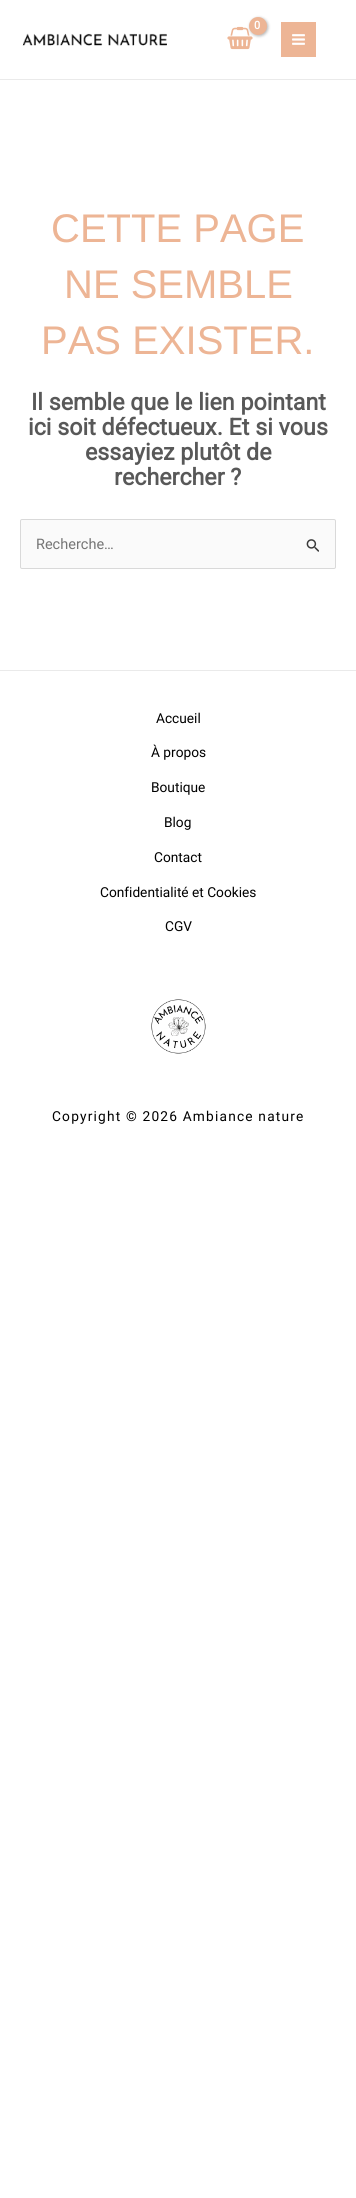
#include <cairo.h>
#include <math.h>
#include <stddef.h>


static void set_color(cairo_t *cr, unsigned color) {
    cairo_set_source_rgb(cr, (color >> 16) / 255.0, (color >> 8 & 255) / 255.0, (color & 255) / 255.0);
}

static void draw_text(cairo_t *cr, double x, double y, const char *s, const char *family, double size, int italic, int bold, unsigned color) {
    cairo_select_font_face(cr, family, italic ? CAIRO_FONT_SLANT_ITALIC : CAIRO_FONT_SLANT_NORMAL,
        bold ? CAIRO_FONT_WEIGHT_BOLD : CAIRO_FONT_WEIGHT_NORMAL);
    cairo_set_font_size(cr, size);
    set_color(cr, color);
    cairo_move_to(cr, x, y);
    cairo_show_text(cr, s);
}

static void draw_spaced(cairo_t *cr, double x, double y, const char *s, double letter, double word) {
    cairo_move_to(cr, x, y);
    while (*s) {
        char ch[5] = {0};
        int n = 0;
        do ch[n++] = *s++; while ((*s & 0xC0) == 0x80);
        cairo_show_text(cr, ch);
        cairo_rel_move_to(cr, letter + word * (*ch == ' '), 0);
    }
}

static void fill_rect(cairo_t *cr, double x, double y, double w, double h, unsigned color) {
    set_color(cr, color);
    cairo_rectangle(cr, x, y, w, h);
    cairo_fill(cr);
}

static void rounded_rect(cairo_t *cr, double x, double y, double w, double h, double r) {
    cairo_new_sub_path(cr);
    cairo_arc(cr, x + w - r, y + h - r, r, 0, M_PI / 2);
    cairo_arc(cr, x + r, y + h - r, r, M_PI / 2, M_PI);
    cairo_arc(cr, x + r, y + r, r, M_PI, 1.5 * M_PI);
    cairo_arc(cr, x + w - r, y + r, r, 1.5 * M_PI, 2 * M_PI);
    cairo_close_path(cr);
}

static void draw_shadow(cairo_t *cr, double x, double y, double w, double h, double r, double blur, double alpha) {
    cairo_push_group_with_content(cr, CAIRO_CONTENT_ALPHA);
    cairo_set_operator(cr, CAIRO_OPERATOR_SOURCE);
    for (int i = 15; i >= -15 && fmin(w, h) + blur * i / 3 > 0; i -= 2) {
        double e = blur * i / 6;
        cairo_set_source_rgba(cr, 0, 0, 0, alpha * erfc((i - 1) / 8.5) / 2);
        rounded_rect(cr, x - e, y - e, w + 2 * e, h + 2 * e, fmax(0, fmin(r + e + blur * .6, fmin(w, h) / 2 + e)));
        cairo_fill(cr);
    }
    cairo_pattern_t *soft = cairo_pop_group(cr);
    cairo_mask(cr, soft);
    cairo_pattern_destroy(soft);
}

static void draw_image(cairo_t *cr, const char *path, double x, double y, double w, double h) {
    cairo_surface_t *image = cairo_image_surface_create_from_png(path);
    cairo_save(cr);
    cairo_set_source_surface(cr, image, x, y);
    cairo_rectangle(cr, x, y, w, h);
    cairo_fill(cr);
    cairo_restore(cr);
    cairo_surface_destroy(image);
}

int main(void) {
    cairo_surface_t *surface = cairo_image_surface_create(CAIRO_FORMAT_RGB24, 356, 2198);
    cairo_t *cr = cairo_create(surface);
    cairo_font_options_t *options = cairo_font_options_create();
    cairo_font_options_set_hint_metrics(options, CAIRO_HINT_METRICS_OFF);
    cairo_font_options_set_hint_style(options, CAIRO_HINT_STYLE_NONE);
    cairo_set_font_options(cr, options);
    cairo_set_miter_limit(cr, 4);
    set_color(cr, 0xFFFFFF);
    cairo_paint(cr);
    fill_rect(cr, 0, 79, 356, 1, 0xEAEAEA);
    draw_image(cr, "assets/img1.png", 227, 26, 26, 24);
    set_color(cr, 0x000000);
    draw_shadow(cr, 250, 18, 18, 18, 9, 1.5, 0.3);
    set_color(cr, 0xEDB595);
    cairo_arc(cr, 258, 26, 9, 0, 2 * M_PI);
    cairo_fill(cr);
    draw_text(cr, 254, 29, "0", "Roboto", 11, 0, 1, 0xFFFFFF);
    fill_rect(cr, 281, 22, 35, 35, 0xEDB595);
    draw_image(cr, "assets/img2.png", 292, 34, 13, 11);
    draw_image(cr, "assets/img3.png", 22, 33, 145, 13);
    draw_text(cr, 51, 242, "CETTE PAGE", "Liberation Sans", 40, 0, 0, 0xEDB595);
    draw_text(cr, 64, 298, "NE SEMBLE", "Liberation Sans", 40, 0, 0, 0xEDB595);
    draw_text(cr, 41, 354, "PAS EXISTER.", "Liberation Sans", 40, 0, 0, 0xEDB595);
    draw_text(cr, 31, 410, "Il semble que le lien pointant", "Roboto", 23.25, 0, 1, 0x585858);
    draw_text(cr, 28, 435, "ici soit défectueux. Et si vous", "Roboto", 23.25, 0, 1, 0x585858);
    draw_text(cr, 85, 460, "essayiez plutôt de", "Roboto", 23.25, 0, 1, 0x585858);
    draw_text(cr, 114, 485, "rechercher ?", "Roboto", 23.25, 0, 1, 0x585858);
    set_color(cr, 0xFAFAFA);
    rounded_rect(cr, 20.5, 519.5, 315, 49, 1.5);
    cairo_fill_preserve(cr);
    set_color(cr, 0xD9D9D9);
    cairo_set_line_width(cr, 1);
    cairo_stroke(cr);
    draw_text(cr, 36, 549, "Recherche…", "Roboto", 14.5, 0, 0, 0x757575);
    draw_image(cr, "assets/img4.png", 306, 539, 13, 13);
    fill_rect(cr, 0, 670, 356, 1, 0xEAEAEA);
    draw_text(cr, 156, 723, "Accueil", "Roboto", 13.7, 0, 0, 0x000000);
    draw_text(cr, 151, 757, "À propos", "Roboto", 13.7, 0, 0, 0x000000);
    draw_text(cr, 151, 792, "Boutique", "Roboto", 13.7, 0, 0, 0x000000);
    draw_text(cr, 164, 827, "Blog", "Roboto", 13.7, 0, 0, 0x000000);
    draw_text(cr, 154, 862, "Contact", "Roboto", 13.7, 0, 0, 0x000000);
    draw_text(cr, 100, 897, "Confidentialité et Cookies", "Roboto", 13.7, 0, 0, 0x000000);
    draw_text(cr, 165, 931, "CGV", "Roboto", 13.7, 0, 0, 0x000000);
    draw_image(cr, "assets/img5.png", 151, 999, 55, 55);
    draw_spaced(cr, 52, 1121, "Copyright © 2026 Ambiance nature", 1.2, 0);
    cairo_surface_write_to_png(surface, "output.png");
    cairo_font_options_destroy(options);
    cairo_destroy(cr);
    cairo_surface_destroy(surface);
    return 0;
}
